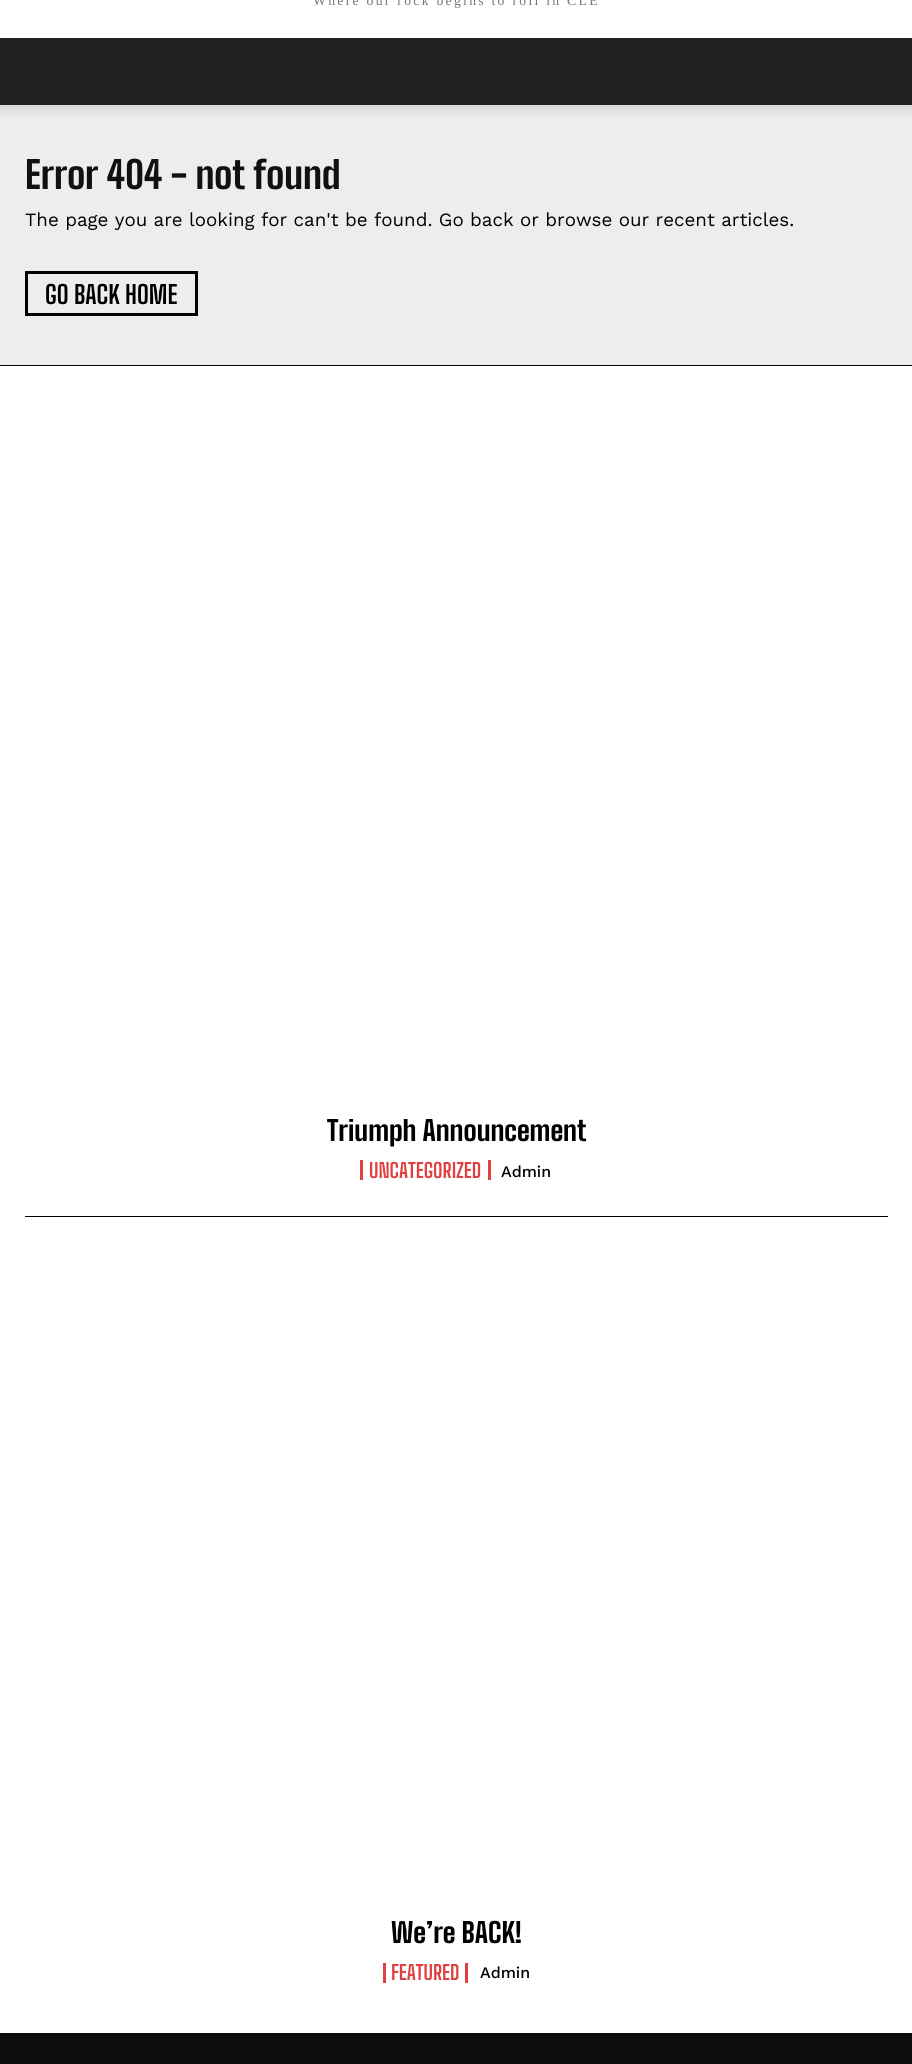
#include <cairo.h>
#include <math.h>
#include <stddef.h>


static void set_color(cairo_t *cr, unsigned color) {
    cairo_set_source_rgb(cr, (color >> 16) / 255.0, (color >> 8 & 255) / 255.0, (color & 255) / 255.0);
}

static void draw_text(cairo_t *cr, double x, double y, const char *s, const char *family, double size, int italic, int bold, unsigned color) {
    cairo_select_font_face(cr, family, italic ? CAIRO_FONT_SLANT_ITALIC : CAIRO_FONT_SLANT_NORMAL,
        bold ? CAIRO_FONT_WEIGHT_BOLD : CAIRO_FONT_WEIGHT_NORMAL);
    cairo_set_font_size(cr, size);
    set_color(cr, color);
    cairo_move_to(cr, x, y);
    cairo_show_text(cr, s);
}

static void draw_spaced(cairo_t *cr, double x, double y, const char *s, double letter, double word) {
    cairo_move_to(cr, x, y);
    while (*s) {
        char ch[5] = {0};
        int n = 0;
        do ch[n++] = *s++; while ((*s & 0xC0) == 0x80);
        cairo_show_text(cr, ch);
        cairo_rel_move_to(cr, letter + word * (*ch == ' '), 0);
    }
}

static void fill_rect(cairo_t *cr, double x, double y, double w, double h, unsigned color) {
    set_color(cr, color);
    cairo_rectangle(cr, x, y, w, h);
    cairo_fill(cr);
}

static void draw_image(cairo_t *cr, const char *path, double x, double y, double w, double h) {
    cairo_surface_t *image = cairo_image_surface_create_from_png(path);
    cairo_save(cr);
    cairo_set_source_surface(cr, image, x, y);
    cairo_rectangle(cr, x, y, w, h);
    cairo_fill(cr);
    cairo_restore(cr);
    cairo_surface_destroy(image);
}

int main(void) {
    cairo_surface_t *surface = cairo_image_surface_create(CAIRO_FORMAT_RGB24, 912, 2064);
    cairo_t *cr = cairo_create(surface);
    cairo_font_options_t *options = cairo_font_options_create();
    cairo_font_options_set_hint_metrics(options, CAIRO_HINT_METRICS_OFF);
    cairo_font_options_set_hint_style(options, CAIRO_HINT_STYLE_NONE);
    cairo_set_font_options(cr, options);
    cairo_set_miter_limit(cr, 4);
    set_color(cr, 0xFFFFFF);
    cairo_paint(cr);
    cairo_select_font_face(cr, "Liberation Serif", CAIRO_FONT_SLANT_NORMAL, CAIRO_FONT_WEIGHT_NORMAL);
    cairo_set_font_size(cr, 13.75);
    set_color(cr, 0x777777);
    draw_spaced(cr, 313, 5, "Where our rock begins to roll in CLE", 2.25, 0);
    fill_rect(cr, 0, 38, 912, 67, 0x222222);
    fill_rect(cr, 0, 105, 912, 260, 0xEDEDED);
    draw_image(cr, "assets/img1.png", 0, 105, 912, 11);
    fill_rect(cr, 0, 365, 912, 1, 0x000000);
    draw_text(cr, 25, 189, "Error 404 - not found", "Big Shoulders Text ExtraBold", 37.5, 0, 0, 0x111111);
    draw_text(cr, 25, 226, "The page you are looking for can't be found. Go back or browse our recent articles.", "Work Sans", 18.75, 0, 0, 0x000000);
    cairo_rectangle(cr, 26.5, 272.5, 170, 42);
    cairo_set_line_width(cr, 3);
    cairo_stroke(cr);
    draw_text(cr, 45, 304, "GO BACK HOME", "Big Shoulders Text", 25, 0, 1, 0x000000);
    draw_text(cr, 327, 1141, "Triumph Announcement", "Big Shoulders Text ExtraBold", 27.5, 0, 0, 0x000000);
    fill_rect(cr, 488, 1160, 3, 20, 0xE04040);
    fill_rect(cr, 360, 1160, 3, 20, 0xE04040);
    draw_text(cr, 369, 1178, "UNCATEGORIZED", "Big Shoulders Text", 20, 0, 1, 0xE04040);
    draw_text(cr, 501, 1177, "Admin", "Work Sans Medium", 16, 0, 0, 0x000000);
    fill_rect(cr, 25, 1216, 863, 1, 0x000000);
    draw_text(cr, 391, 1943, "We’re BACK!", "Big Shoulders Text ExtraBold", 27.5, 0, 0, 0x000000);
    fill_rect(cr, 465, 1963, 3, 20, 0xE04040);
    fill_rect(cr, 383, 1963, 3, 20, 0xE04040);
    draw_text(cr, 391, 1980, "FEATURED", "Big Shoulders Text", 20, 0, 1, 0xE04040);
    draw_text(cr, 480, 1978, "Admin", "Work Sans Medium", 16, 0, 0, 0x000000);
    fill_rect(cr, 0, 2033, 912, 31, 0x0D0D0D);
    cairo_surface_write_to_png(surface, "output.png");
    cairo_font_options_destroy(options);
    cairo_destroy(cr);
    cairo_surface_destroy(surface);
    return 0;
}
